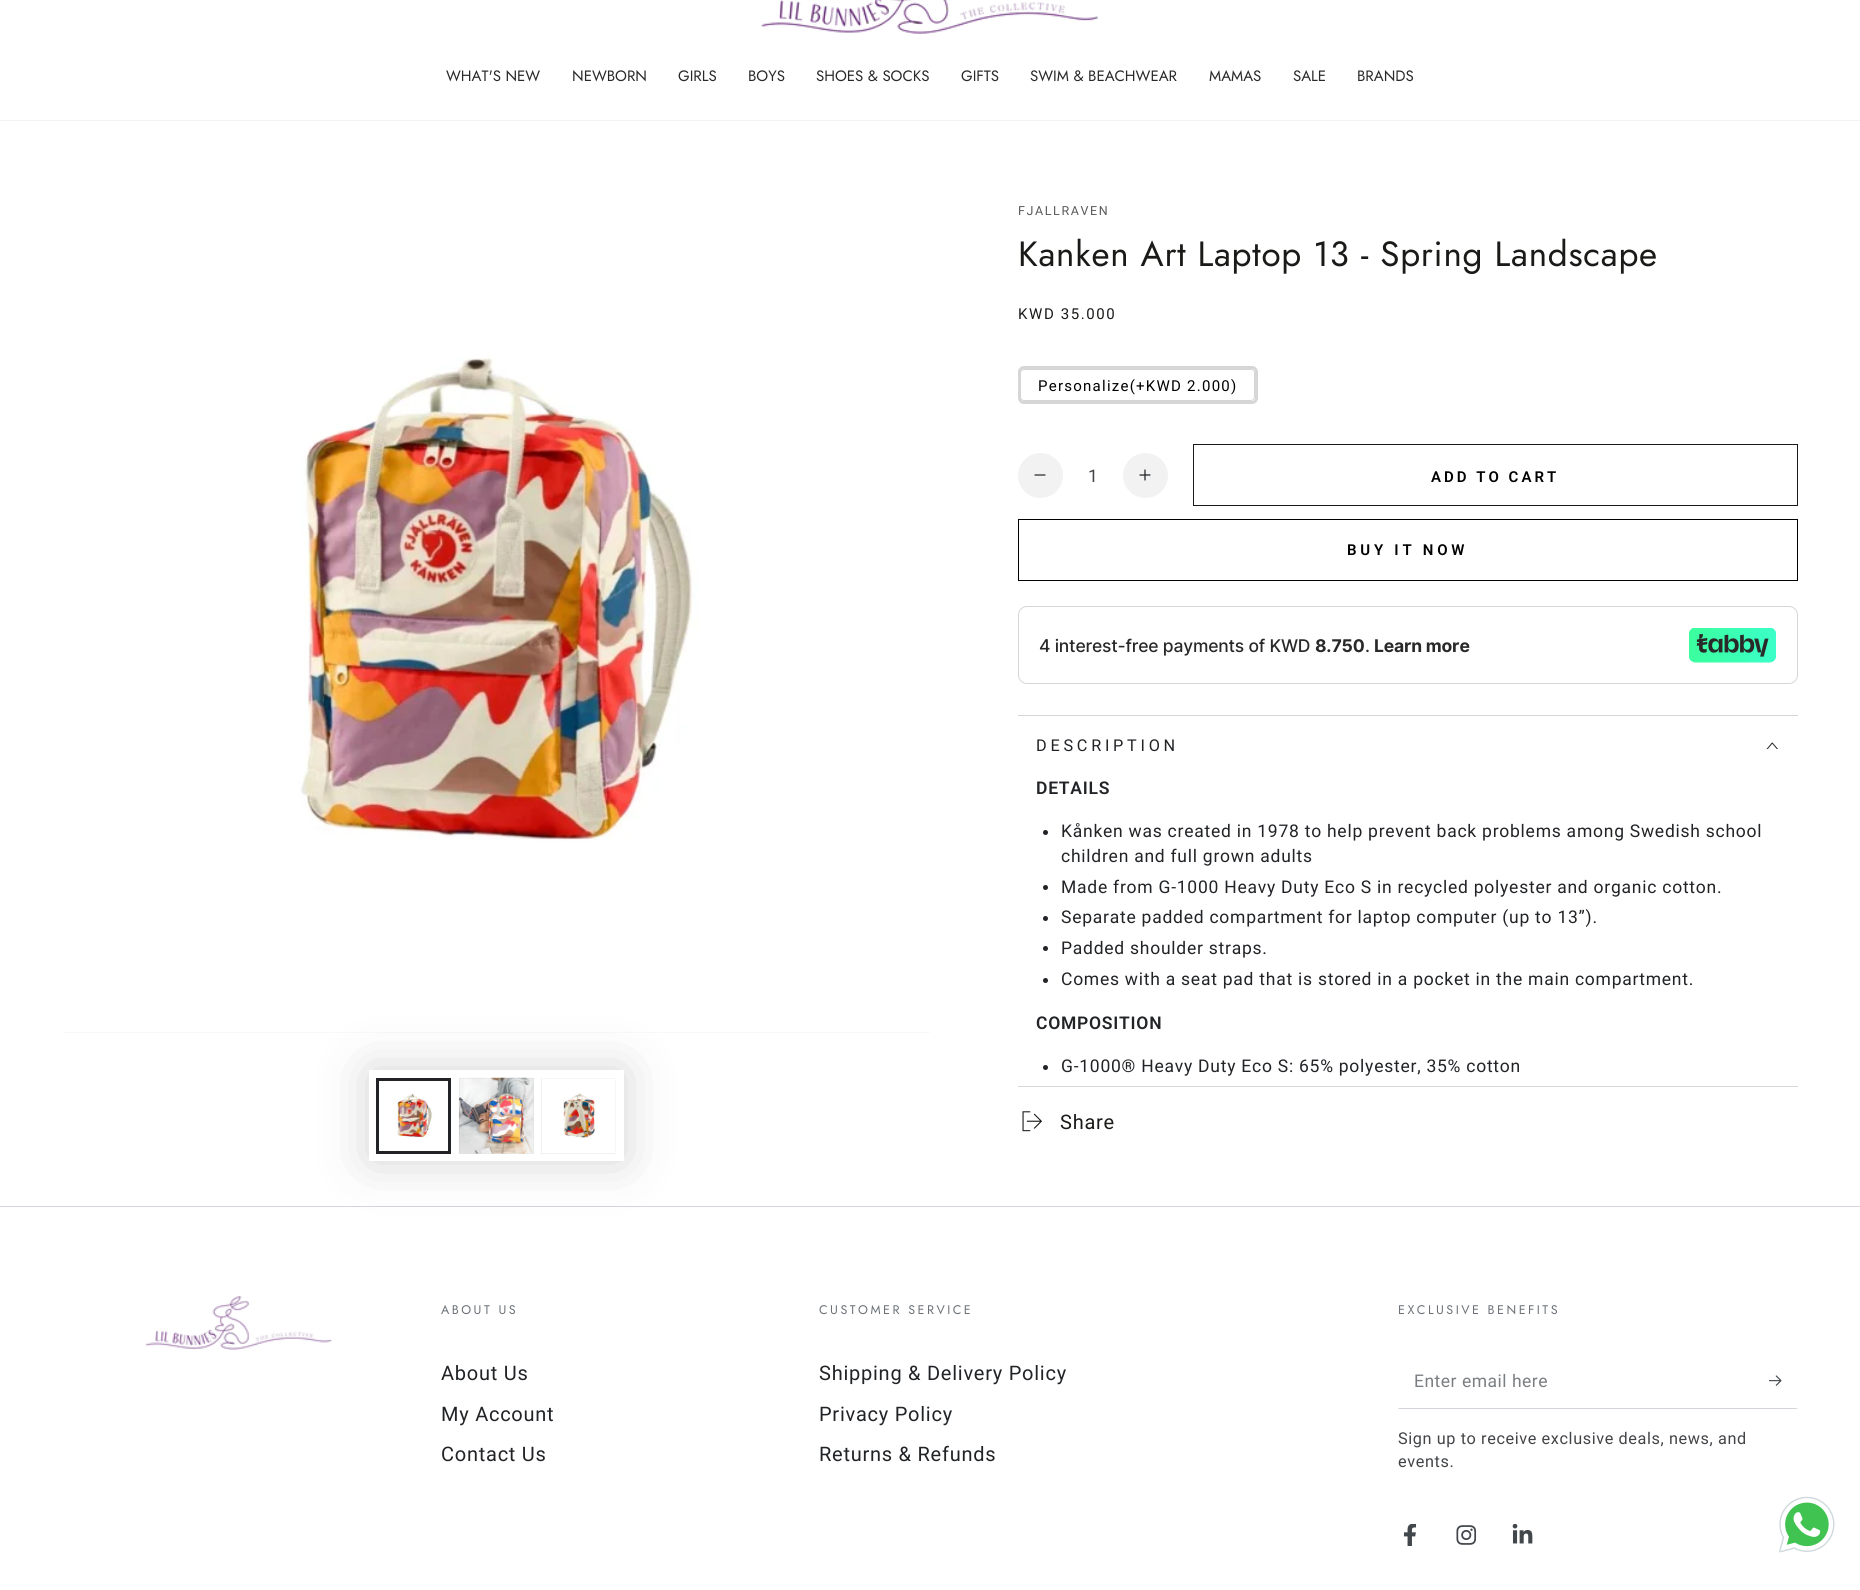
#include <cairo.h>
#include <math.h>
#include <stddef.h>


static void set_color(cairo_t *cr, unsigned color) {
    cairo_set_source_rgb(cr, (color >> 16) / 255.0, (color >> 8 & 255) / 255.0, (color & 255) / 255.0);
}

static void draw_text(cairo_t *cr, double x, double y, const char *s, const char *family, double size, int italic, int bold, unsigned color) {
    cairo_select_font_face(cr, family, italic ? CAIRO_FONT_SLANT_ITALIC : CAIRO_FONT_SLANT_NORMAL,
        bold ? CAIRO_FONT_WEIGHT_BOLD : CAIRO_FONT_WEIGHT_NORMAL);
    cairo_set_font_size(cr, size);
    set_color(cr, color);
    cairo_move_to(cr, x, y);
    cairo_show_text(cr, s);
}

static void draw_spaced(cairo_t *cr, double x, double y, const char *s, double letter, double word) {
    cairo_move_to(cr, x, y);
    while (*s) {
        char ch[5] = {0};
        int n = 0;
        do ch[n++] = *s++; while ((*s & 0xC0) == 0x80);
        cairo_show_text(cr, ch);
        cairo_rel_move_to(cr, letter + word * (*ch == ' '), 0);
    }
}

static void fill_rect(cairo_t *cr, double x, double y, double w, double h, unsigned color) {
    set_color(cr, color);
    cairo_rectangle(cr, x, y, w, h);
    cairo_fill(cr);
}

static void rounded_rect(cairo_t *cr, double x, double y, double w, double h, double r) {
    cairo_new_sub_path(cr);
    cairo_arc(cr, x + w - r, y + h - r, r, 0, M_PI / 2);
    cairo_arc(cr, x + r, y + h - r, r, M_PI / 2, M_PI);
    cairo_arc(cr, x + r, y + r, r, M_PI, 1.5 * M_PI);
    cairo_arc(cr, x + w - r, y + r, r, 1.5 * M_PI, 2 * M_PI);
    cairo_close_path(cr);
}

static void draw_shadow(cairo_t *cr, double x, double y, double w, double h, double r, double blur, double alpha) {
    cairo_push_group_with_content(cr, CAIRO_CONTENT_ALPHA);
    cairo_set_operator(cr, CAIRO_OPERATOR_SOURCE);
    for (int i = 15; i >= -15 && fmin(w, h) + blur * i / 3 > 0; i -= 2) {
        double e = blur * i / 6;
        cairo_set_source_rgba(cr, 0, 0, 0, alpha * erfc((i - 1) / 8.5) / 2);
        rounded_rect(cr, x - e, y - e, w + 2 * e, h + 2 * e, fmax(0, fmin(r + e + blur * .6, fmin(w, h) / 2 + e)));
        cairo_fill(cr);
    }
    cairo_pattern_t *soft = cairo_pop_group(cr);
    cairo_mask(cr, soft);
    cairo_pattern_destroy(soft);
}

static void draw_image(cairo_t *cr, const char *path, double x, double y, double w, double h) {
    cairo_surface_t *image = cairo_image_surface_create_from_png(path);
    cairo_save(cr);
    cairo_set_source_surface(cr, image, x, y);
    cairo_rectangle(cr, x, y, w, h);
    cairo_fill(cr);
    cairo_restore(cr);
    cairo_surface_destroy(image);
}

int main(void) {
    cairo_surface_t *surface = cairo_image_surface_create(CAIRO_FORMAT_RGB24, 1860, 1590);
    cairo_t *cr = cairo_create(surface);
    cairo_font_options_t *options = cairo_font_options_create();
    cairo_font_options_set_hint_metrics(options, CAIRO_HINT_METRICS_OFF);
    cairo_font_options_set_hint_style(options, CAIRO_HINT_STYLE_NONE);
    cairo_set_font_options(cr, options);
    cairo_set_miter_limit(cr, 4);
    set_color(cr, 0xFFFFFF);
    cairo_paint(cr);
    fill_rect(cr, 0, 120, 1860, 1, 0xF3F3F3);
    draw_image(cr, "assets/img1.png", 761, 0, 337, 34);
    draw_text(cr, 446, 81, "WHAT'S NEW", "Jost", 15, 0, 0, 0x292929);
    draw_text(cr, 572, 81, "NEWBORN", "Jost", 15, 0, 0, 0x292929);
    draw_text(cr, 678, 81, "GIRLS", "Jost", 15, 0, 0, 0x292929);
    draw_text(cr, 748, 81, "BOYS", "Jost", 15, 0, 0, 0x292929);
    draw_text(cr, 816, 81, "SHOES & SOCKS", "Jost", 15, 0, 0, 0x292929);
    draw_text(cr, 961, 81, "GIFTS", "Jost", 15, 0, 0, 0x292929);
    draw_text(cr, 1030, 81, "SWIM & BEACHWEAR", "Jost", 15, 0, 0, 0x292929);
    draw_text(cr, 1209, 81, "MAMAS", "Jost", 15, 0, 0, 0x292929);
    draw_text(cr, 1293, 81, "SALE", "Jost", 15, 0, 0, 0x292929);
    draw_text(cr, 1357, 81, "BRANDS", "Jost", 15, 0, 0, 0x292929);
    fill_rect(cr, 63, 165, 867, 868, 0xF3F3F3);
    draw_image(cr, "assets/img2.png", 63, 165, 867, 868);
    fill_rect(cr, 0, 1206, 1860, 1, 0xD2D5D9);
    set_color(cr, 0x212326);
    draw_shadow(cr, 369, 1070, 255, 91, 0, 25, 0.2);
    fill_rect(cr, 369, 1070, 255, 91, 0xFFFFFF);
    draw_image(cr, "assets/img3.png", 379, 1081, 69, 70);
    cairo_rectangle(cr, 377.5, 1079.5, 72, 73);
    set_color(cr, 0x212326);
    cairo_set_line_width(cr, 3);
    cairo_stroke(cr);
    fill_rect(cr, 459, 1078, 75, 76, 0xF3F3F3);
    draw_image(cr, "assets/img4.png", 458, 1077, 76, 77);
    cairo_rectangle(cr, 459.5, 1078.5, 74, 75);
    cairo_set_source_rgba(cr, 0.129, 0.137, 0.149, 0.04);
    cairo_set_line_width(cr, 1);
    cairo_stroke(cr);
    fill_rect(cr, 541, 1078, 75, 76, 0xF3F3F3);
    draw_image(cr, "assets/img5.png", 541, 1078, 75, 76);
    cairo_rectangle(cr, 541.5, 1078.5, 74, 75);
    cairo_set_source_rgba(cr, 0.129, 0.137, 0.149, 0.04);
    cairo_stroke(cr);
    cairo_select_font_face(cr, "Roboto", CAIRO_FONT_SLANT_NORMAL, CAIRO_FONT_WEIGHT_NORMAL);
    cairo_set_font_size(cr, 12.5);
    set_color(cr, 0x595A5C);
    draw_spaced(cr, 1018, 215, "FJALLRAVEN", 1.6, 0);
    cairo_select_font_face(cr, "Jost", CAIRO_FONT_SLANT_NORMAL, CAIRO_FONT_WEIGHT_NORMAL);
    cairo_set_font_size(cr, 35);
    set_color(cr, 0x1A1B18);
    draw_spaced(cr, 1018, 266, "Kanken Art Laptop 13 - Spring Landscape", 0.75, 0);
    cairo_select_font_face(cr, "Roboto", CAIRO_FONT_SLANT_NORMAL, CAIRO_FONT_WEIGHT_NORMAL);
    cairo_set_font_size(cr, 15);
    draw_spaced(cr, 1018, 319, "KWD 35.000", 1.6, 0);
    rounded_rect(cr, 1020.5, 369.5, 234, 31, 3.5);
    set_color(cr, 0xD6D6D6);
    cairo_stroke(cr);
    rounded_rect(cr, 1019.5, 367.5, 237, 35, 4.5);
    cairo_set_line_width(cr, 3);
    cairo_stroke(cr);
    set_color(cr, 0x000000);
    draw_spaced(cr, 1038, 391, "Personalize(+KWD 2.000)", 1.25, 0);
    set_color(cr, 0xF2F2F2);
    cairo_new_path(cr);
    cairo_arc(cr, 1040.5, 475.5, 22.5, 0, 2 * M_PI);
    cairo_fill(cr);
    draw_image(cr, "assets/img6.png", 1034, 474, 12, 2);
    draw_text(cr, 1088, 482, "1", "Roboto", 17.5, 0, 0, 0x424447);
    set_color(cr, 0xF2F2F2);
    cairo_new_path(cr);
    cairo_arc(cr, 1145.5, 475.5, 22.5, 0, 2 * M_PI);
    cairo_fill(cr);
    draw_image(cr, "assets/img7.png", 1139, 469, 12, 12);
    cairo_rectangle(cr, 1193.5, 444.5, 604, 61);
    set_color(cr, 0x1A1B18);
    cairo_set_line_width(cr, 1);
    cairo_stroke(cr);
    cairo_select_font_face(cr, "Roboto SemiBold", CAIRO_FONT_SLANT_NORMAL, CAIRO_FONT_WEIGHT_NORMAL);
    cairo_set_font_size(cr, 15);
    set_color(cr, 0x000000);
    draw_spaced(cr, 1431, 482, "ADD TO CART", 3, 0);
    cairo_rectangle(cr, 1018.5, 519.5, 779, 61);
    cairo_stroke(cr);
    draw_spaced(cr, 1347, 555, "BUY IT NOW", 3.75, 0);
    rounded_rect(cr, 1018.5, 606.5, 779, 77, 8.5);
    set_color(cr, 0xD6D6D3);
    cairo_stroke(cr);
    cairo_select_font_face(cr, "Inter Medium", CAIRO_FONT_SLANT_NORMAL, CAIRO_FONT_WEIGHT_NORMAL);
    cairo_set_font_size(cr, 17.5);
    set_color(cr, 0x292929);
    draw_spaced(cr, 1039, 652, "4 interest-free payments of KWD", -0.2, 0);
    cairo_select_font_face(cr, "Inter", CAIRO_FONT_SLANT_NORMAL, CAIRO_FONT_WEIGHT_BOLD);
    draw_spaced(cr, 1315, 652, "8.750", -0.2, 0);
    cairo_select_font_face(cr, "Inter Medium", CAIRO_FONT_SLANT_NORMAL, CAIRO_FONT_WEIGHT_NORMAL);
    draw_spaced(cr, 1365, 652, ".", -0.2, 0);
    cairo_select_font_face(cr, "Inter", CAIRO_FONT_SLANT_NORMAL, CAIRO_FONT_WEIGHT_BOLD);
    draw_spaced(cr, 1374, 652, "Learn more", -0.2, 0);
    draw_image(cr, "assets/img8.png", 1689, 628, 87, 35);
    fill_rect(cr, 1018, 715, 780, 1, 0xD6D6D6);
    fill_rect(cr, 1018, 1086, 780, 1, 0xD6D6D6);
    cairo_select_font_face(cr, "Roboto", CAIRO_FONT_SLANT_NORMAL, CAIRO_FONT_WEIGHT_NORMAL);
    cairo_set_font_size(cr, 16.25);
    set_color(cr, 0x212326);
    draw_spaced(cr, 1036, 751, "DESCRIPTION", 3.75, 0);
    draw_image(cr, "assets/img9.png", 1766, 742, 12, 7);
    cairo_select_font_face(cr, "Roboto SemiBold", CAIRO_FONT_SLANT_NORMAL, CAIRO_FONT_WEIGHT_NORMAL);
    cairo_set_font_size(cr, 17.5);
    draw_spaced(cr, 1036, 794, "DETAILS", 0.75, 0);
    cairo_new_path(cr);
    cairo_arc(cr, 1045.5, 832.5, 2.5, 0, 2 * M_PI);
    cairo_fill(cr);
    cairo_select_font_face(cr, "Roboto", CAIRO_FONT_SLANT_NORMAL, CAIRO_FONT_WEIGHT_NORMAL);
    draw_spaced(cr, 1061, 837, "Kånken was created in 1978 to help prevent back problems among Swedish school", 0.75, 0);
    draw_spaced(cr, 1061, 862, "children and full grown adults", 0.75, 0);
    cairo_new_path(cr);
    cairo_arc(cr, 1045.5, 887.5, 2.5, 0, 2 * M_PI);
    cairo_fill(cr);
    draw_spaced(cr, 1061, 893, "Made from G-1000 Heavy Duty Eco S in recycled polyester and organic cotton.", 0.75, 0);
    cairo_new_path(cr);
    cairo_arc(cr, 1045.5, 918.5, 2.5, 0, 2 * M_PI);
    cairo_fill(cr);
    draw_spaced(cr, 1061, 923, "Separate padded compartment for laptop computer (up to 13”).", 0.75, 0);
    cairo_new_path(cr);
    cairo_arc(cr, 1045.5, 948.5, 2.5, 0, 2 * M_PI);
    cairo_fill(cr);
    draw_spaced(cr, 1061, 954, "Padded shoulder straps.", 0.75, 0);
    cairo_new_path(cr);
    cairo_arc(cr, 1045.5, 980.5, 2.5, 0, 2 * M_PI);
    cairo_fill(cr);
    draw_spaced(cr, 1061, 985, "Comes with a seat pad that is stored in a pocket in the main compartment.", 0.75, 0);
    cairo_select_font_face(cr, "Roboto SemiBold", CAIRO_FONT_SLANT_NORMAL, CAIRO_FONT_WEIGHT_NORMAL);
    draw_spaced(cr, 1036, 1029, "COMPOSITION", 0.75, 0);
    cairo_new_path(cr);
    cairo_arc(cr, 1045.5, 1067.5, 2.5, 0, 2 * M_PI);
    cairo_fill(cr);
    cairo_select_font_face(cr, "Roboto", CAIRO_FONT_SLANT_NORMAL, CAIRO_FONT_WEIGHT_NORMAL);
    draw_spaced(cr, 1061, 1072, "G-1000® Heavy Duty Eco S: 65% polyester, 35% cotton", 0.75, 0);
    draw_image(cr, "assets/img10.png", 1022, 1111, 20, 21);
    cairo_set_font_size(cr, 20);
    set_color(cr, 0x1A1B18);
    draw_spaced(cr, 1060, 1129, "Share", 0.75, 0);
    draw_image(cr, "assets/img11.png", 145, 1296, 187, 54);
    cairo_select_font_face(cr, "Jost", CAIRO_FONT_SLANT_NORMAL, CAIRO_FONT_WEIGHT_NORMAL);
    cairo_set_font_size(cr, 12.5);
    set_color(cr, 0x6B7177);
    draw_spaced(cr, 441, 1314, "ABOUT US", 2.5, 0);
    cairo_select_font_face(cr, "Roboto", CAIRO_FONT_SLANT_NORMAL, CAIRO_FONT_WEIGHT_NORMAL);
    cairo_set_font_size(cr, 20);
    set_color(cr, 0x212326);
    draw_spaced(cr, 441, 1380, "About Us", 0.75, 0);
    draw_spaced(cr, 441, 1421, "My Account", 0.75, 0);
    draw_spaced(cr, 441, 1461, "Contact Us", 0.75, 0);
    cairo_select_font_face(cr, "Jost", CAIRO_FONT_SLANT_NORMAL, CAIRO_FONT_WEIGHT_NORMAL);
    cairo_set_font_size(cr, 12.5);
    set_color(cr, 0x6B7177);
    draw_spaced(cr, 819, 1314, "CUSTOMER SERVICE", 2.5, 0);
    cairo_select_font_face(cr, "Roboto", CAIRO_FONT_SLANT_NORMAL, CAIRO_FONT_WEIGHT_NORMAL);
    cairo_set_font_size(cr, 20);
    set_color(cr, 0x212326);
    draw_spaced(cr, 819, 1380, "Shipping & Delivery Policy", 0.75, 0);
    draw_spaced(cr, 819, 1421, "Privacy Policy", 0.75, 0);
    draw_spaced(cr, 819, 1461, "Returns & Refunds", 0.75, 0);
    cairo_select_font_face(cr, "Jost", CAIRO_FONT_SLANT_NORMAL, CAIRO_FONT_WEIGHT_NORMAL);
    cairo_set_font_size(cr, 12.5);
    set_color(cr, 0x6B7177);
    draw_spaced(cr, 1398, 1314, "EXCLUSIVE BENEFITS", 2.5, 0);
    set_color(cr, 0xD2D5D9);
    cairo_new_path(cr);
    cairo_move_to(cr, 1798, 1409);
    cairo_line_to(cr, 1398, 1409);
    cairo_line_to(cr, 1399, 1408);
    cairo_line_to(cr, 1796, 1408);
    cairo_close_path(cr);
    cairo_fill(cr);
    cairo_select_font_face(cr, "Roboto", CAIRO_FONT_SLANT_NORMAL, CAIRO_FONT_WEIGHT_NORMAL);
    cairo_set_font_size(cr, 17.5);
    set_color(cr, 0x7B7E82);
    draw_spaced(cr, 1414, 1387, "Enter email here", 0.5, 0);
    draw_image(cr, "assets/img12.png", 1769, 1375, 13, 11);
    cairo_set_font_size(cr, 16.25);
    set_color(cr, 0x424447);
    draw_spaced(cr, 1398, 1444, "Sign up to receive exclusive deals, news, and", 0.6, 0);
    draw_spaced(cr, 1398, 1467, "events.", 0.6, 0);
    draw_image(cr, "assets/img13.png", 1403, 1524, 14, 22);
    draw_image(cr, "assets/img14.png", 1456, 1525, 21, 20);
    draw_image(cr, "assets/img15.png", 1512, 1524, 21, 20);
    draw_image(cr, "assets/img16.png", 1779, 1496, 56, 57);
    cairo_surface_write_to_png(surface, "output.png");
    cairo_font_options_destroy(options);
    cairo_destroy(cr);
    cairo_surface_destroy(surface);
    return 0;
}
